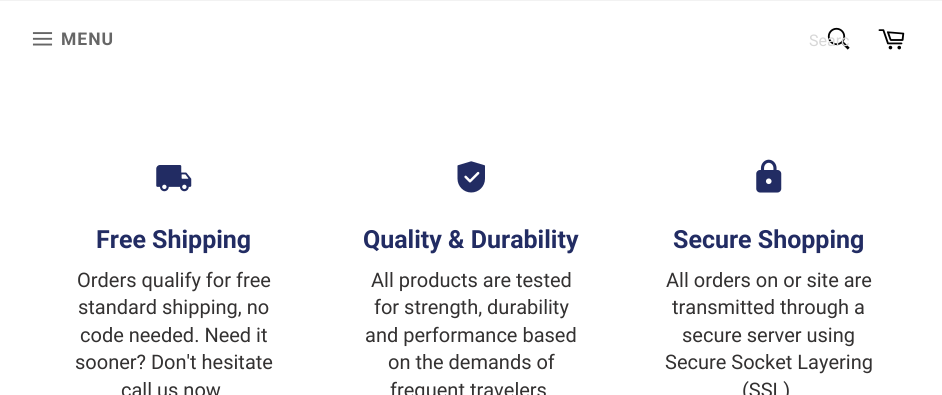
#include <cairo.h>
#include <math.h>
#include <stddef.h>


static void set_color(cairo_t *cr, unsigned color) {
    cairo_set_source_rgb(cr, (color >> 16) / 255.0, (color >> 8 & 255) / 255.0, (color & 255) / 255.0);
}

static void draw_text(cairo_t *cr, double x, double y, const char *s, const char *family, double size, int italic, int bold, unsigned color) {
    cairo_select_font_face(cr, family, italic ? CAIRO_FONT_SLANT_ITALIC : CAIRO_FONT_SLANT_NORMAL,
        bold ? CAIRO_FONT_WEIGHT_BOLD : CAIRO_FONT_WEIGHT_NORMAL);
    cairo_set_font_size(cr, size);
    set_color(cr, color);
    cairo_move_to(cr, x, y);
    cairo_show_text(cr, s);
}

static void draw_spaced(cairo_t *cr, double x, double y, const char *s, double letter, double word) {
    cairo_move_to(cr, x, y);
    while (*s) {
        char ch[5] = {0};
        int n = 0;
        do ch[n++] = *s++; while ((*s & 0xC0) == 0x80);
        cairo_show_text(cr, ch);
        cairo_rel_move_to(cr, letter + word * (*ch == ' '), 0);
    }
}

static void fill_rect(cairo_t *cr, double x, double y, double w, double h, unsigned color) {
    set_color(cr, color);
    cairo_rectangle(cr, x, y, w, h);
    cairo_fill(cr);
}

static void draw_image(cairo_t *cr, const char *path, double x, double y, double w, double h) {
    cairo_surface_t *image = cairo_image_surface_create_from_png(path);
    cairo_save(cr);
    cairo_set_source_surface(cr, image, x, y);
    cairo_rectangle(cr, x, y, w, h);
    cairo_fill(cr);
    cairo_restore(cr);
    cairo_surface_destroy(image);
}

int main(void) {
    cairo_surface_t *surface = cairo_image_surface_create(CAIRO_FORMAT_RGB24, 942, 395);
    cairo_t *cr = cairo_create(surface);
    cairo_font_options_t *options = cairo_font_options_create();
    cairo_font_options_set_hint_metrics(options, CAIRO_HINT_METRICS_OFF);
    cairo_font_options_set_hint_style(options, CAIRO_HINT_STYLE_NONE);
    cairo_set_font_options(cr, options);
    cairo_set_miter_limit(cr, 4);
    set_color(cr, 0xFFFFFF);
    cairo_paint(cr);
    fill_rect(cr, 0, 0, 942, 1, 0xF2F2F2);
    draw_image(cr, "assets/img1.png", 32, 32, 21, 14);
    cairo_select_font_face(cr, "Roboto", CAIRO_FONT_SLANT_NORMAL, CAIRO_FONT_WEIGHT_BOLD);
    cairo_set_font_size(cr, 17.5);
    set_color(cr, 0x666666);
    draw_spaced(cr, 61, 45, "MENU", 1, 0);
    draw_image(cr, "assets/img2.png", 827, 27, 23, 23);
    cairo_save(cr);
    cairo_rectangle(cr, 809, 31, 40, 19);
    cairo_clip(cr);
    draw_text(cr, 809, 46, "Searc", "Roboto", 16, 0, 0, 0xD7D7D7);
    cairo_restore(cr);
    draw_image(cr, "assets/img3.png", 878, 29, 27, 21);
    draw_image(cr, "assets/img4.png", 156, 165, 36, 27);
    draw_text(cr, 96, 248, "Free Shipping", "Roboto", 25, 0, 1, 0x222C63);
    draw_text(cr, 77, 287, "Orders qualify for free", "Roboto", 20, 0, 0, 0x333131);
    draw_text(cr, 78, 314, "standard shipping, no", "Roboto", 20, 0, 0, 0x333131);
    draw_text(cr, 80, 342, "code needed. Need it", "Roboto", 20, 0, 0, 0x333131);
    draw_text(cr, 75, 369, "sooner? Don't hesitate", "Roboto", 20, 0, 0, 0x333131);
    draw_text(cr, 121, 397, "call us now", "Roboto", 20, 0, 0, 0x333131);
    draw_image(cr, "assets/img5.png", 457, 161, 28, 32);
    draw_text(cr, 363, 248, "Quality & Durability", "Roboto", 25, 0, 1, 0x222C63);
    draw_text(cr, 371, 287, "All products are tested", "Roboto", 20, 0, 0, 0x333131);
    draw_text(cr, 374, 314, "for strength, durability", "Roboto", 20, 0, 0, 0x333131);
    draw_text(cr, 365, 342, "and performance based", "Roboto", 20, 0, 0, 0x333131);
    draw_text(cr, 388, 369, "on the demands of", "Roboto", 20, 0, 0, 0x333131);
    draw_text(cr, 390, 397, "frequent travelers", "Roboto", 20, 0, 0, 0x333131);
    draw_image(cr, "assets/img6.png", 756, 159, 26, 34);
    draw_text(cr, 673, 248, "Secure Shopping", "Roboto", 25, 0, 1, 0x222C63);
    draw_text(cr, 666, 287, "All orders on or site are", "Roboto", 20, 0, 0, 0x333131);
    draw_text(cr, 672, 314, "transmitted through a", "Roboto", 20, 0, 0, 0x333131);
    draw_text(cr, 682, 342, "secure server using", "Roboto", 20, 0, 0, 0x333131);
    draw_text(cr, 665, 369, "Secure Socket Layering", "Roboto", 20, 0, 0, 0x333131);
    draw_text(cr, 742, 397, "(SSL)", "Roboto", 20, 0, 0, 0x333131);
    cairo_surface_write_to_png(surface, "output.png");
    cairo_font_options_destroy(options);
    cairo_destroy(cr);
    cairo_surface_destroy(surface);
    return 0;
}
